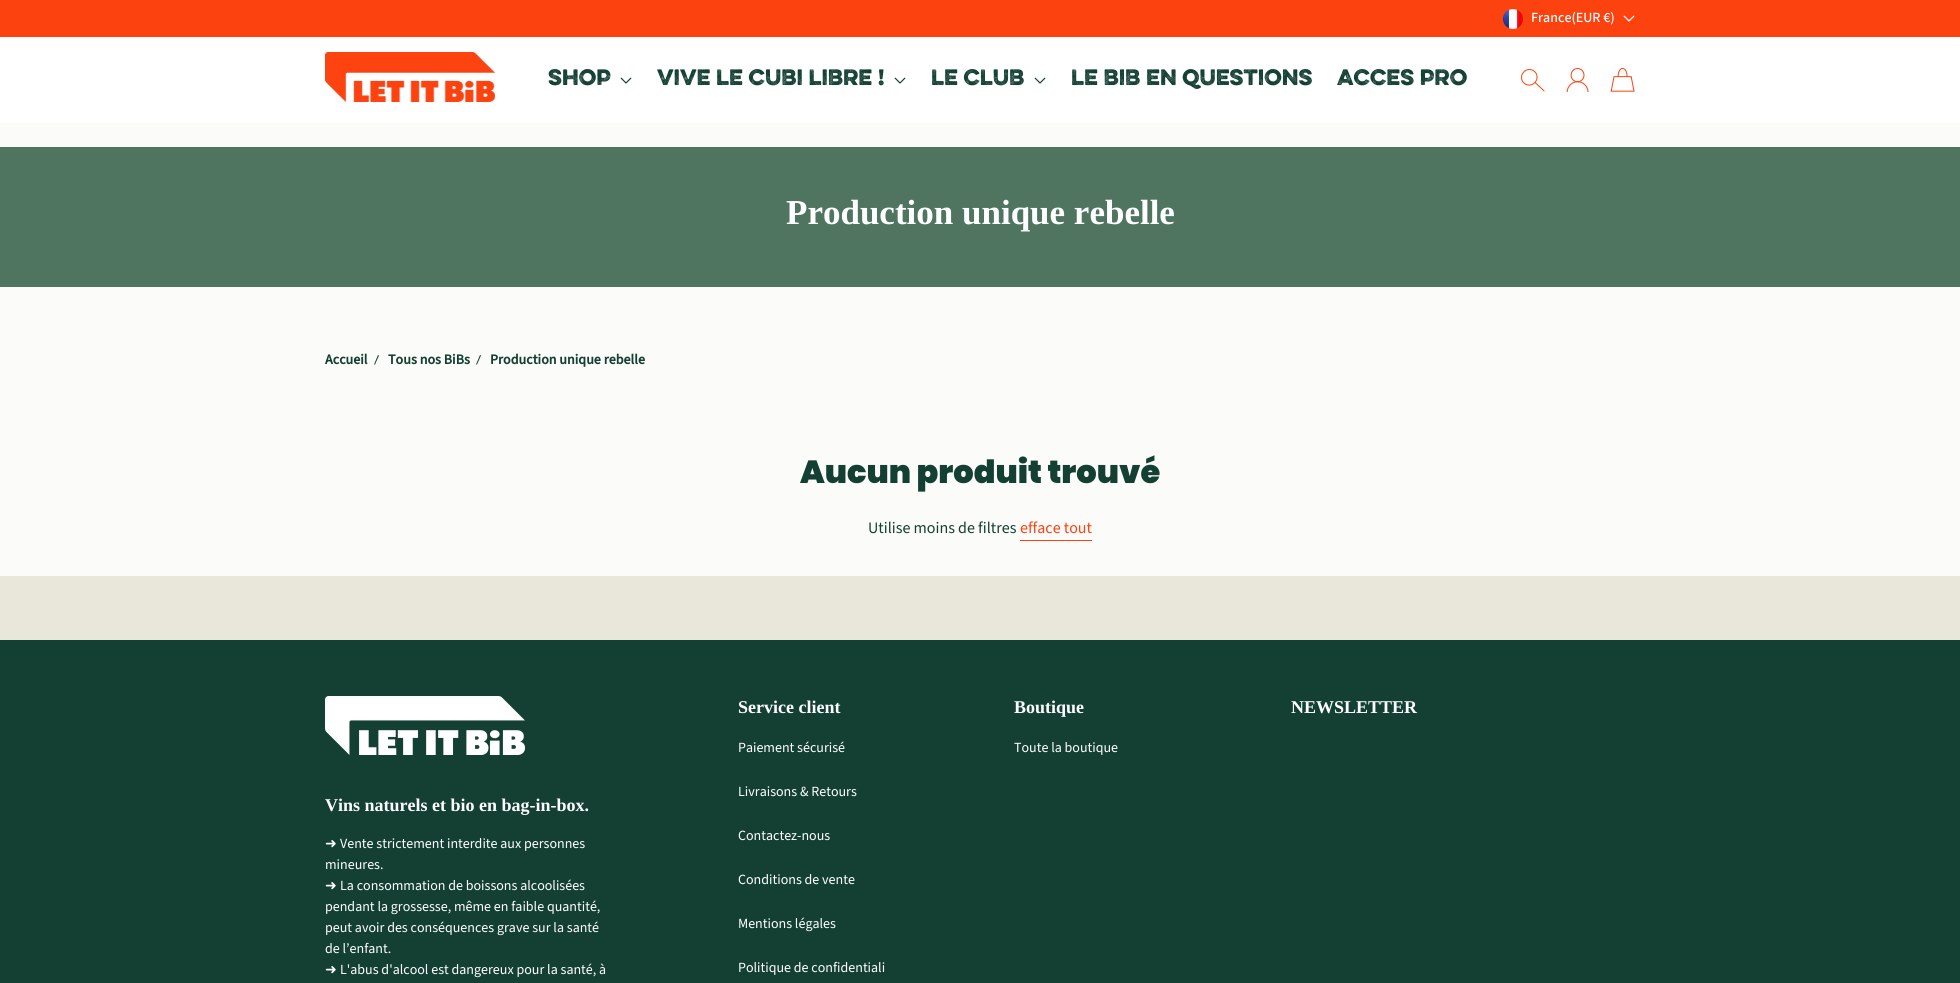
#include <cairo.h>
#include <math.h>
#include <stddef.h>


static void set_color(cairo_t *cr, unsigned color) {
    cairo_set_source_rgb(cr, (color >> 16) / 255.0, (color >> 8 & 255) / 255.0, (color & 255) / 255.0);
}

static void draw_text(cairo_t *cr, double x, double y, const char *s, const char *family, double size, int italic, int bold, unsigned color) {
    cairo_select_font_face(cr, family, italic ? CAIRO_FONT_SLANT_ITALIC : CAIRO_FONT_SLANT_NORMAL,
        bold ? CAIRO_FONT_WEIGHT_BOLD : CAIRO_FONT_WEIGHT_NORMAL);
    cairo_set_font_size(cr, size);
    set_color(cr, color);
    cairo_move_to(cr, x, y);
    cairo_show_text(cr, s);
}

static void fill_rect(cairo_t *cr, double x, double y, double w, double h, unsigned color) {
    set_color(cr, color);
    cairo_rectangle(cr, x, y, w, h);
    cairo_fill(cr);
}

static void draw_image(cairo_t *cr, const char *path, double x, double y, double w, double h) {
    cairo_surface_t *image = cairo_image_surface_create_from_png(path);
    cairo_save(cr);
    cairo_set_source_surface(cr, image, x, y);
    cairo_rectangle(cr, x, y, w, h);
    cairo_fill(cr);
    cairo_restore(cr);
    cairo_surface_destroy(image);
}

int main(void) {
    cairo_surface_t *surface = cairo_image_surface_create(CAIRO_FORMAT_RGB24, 1960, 983);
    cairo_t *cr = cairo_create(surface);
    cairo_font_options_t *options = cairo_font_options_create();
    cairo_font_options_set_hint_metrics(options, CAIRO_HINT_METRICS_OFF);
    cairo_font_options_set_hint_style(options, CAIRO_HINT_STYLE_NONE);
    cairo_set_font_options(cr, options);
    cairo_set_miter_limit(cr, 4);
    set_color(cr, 0xFBFBF9);
    cairo_paint(cr);
    fill_rect(cr, 0, 0, 1960, 37, 0xFC420F);
    draw_image(cr, "assets/img1.png", 1503, 9, 20, 20);
    draw_text(cr, 1531, 22, "France(EUR €)", "Source Sans Pro Medium", 14, 0, 0, 0xFFFFFF);
    draw_image(cr, "assets/img2.png", 1623, 15, 12, 7);
    fill_rect(cr, 0, 37, 1960, 86, 0xFFFFFF);
    draw_image(cr, "assets/img3.png", 325, 52, 170, 50);
    draw_text(cr, 548, 85, "SHOP", "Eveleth", 20, 0, 1, 0x144033);
    draw_image(cr, "assets/img4.png", 620, 77, 12, 7);
    draw_text(cr, 657, 85, "VIVE LE CUBI LIBRE !", "Eveleth", 20, 0, 1, 0x144033);
    draw_image(cr, "assets/img4.png", 894, 77, 12, 7);
    draw_text(cr, 931, 85, "LE CLUB", "Eveleth", 20, 0, 1, 0x144033);
    draw_image(cr, "assets/img4.png", 1034, 77, 12, 7);
    draw_text(cr, 1071, 85, "LE BIB EN QUESTIONS", "Eveleth", 20, 0, 1, 0x144033);
    draw_text(cr, 1337, 85, "ACCES PRO", "Eveleth", 20, 0, 1, 0x144033);
    draw_image(cr, "assets/img5.png", 1521, 69, 24, 23);
    draw_image(cr, "assets/img6.png", 1566, 68, 23, 24);
    draw_image(cr, "assets/img7.png", 1610, 68, 25, 24);
    fill_rect(cr, 0, 147, 1960, 140, 0x4F7460);
    draw_text(cr, 786, 224, "Production unique rebelle", "Liberation Serif", 35, 0, 1, 0xFFFFFF);
    draw_text(cr, 325, 364, "Accueil", "Source Sans Pro", 14, 0, 1, 0x144033);
    cairo_new_path(cr);
    cairo_move_to(cr, 378, 355);
    cairo_line_to(cr, 379, 355.5);
    cairo_line_to(cr, 375, 364.5);
    cairo_line_to(cr, 374, 364.5);
    cairo_close_path(cr);
    cairo_fill(cr);
    draw_text(cr, 388, 364, "Tous nos BiBs", "Source Sans Pro", 14, 0, 1, 0x144033);
    cairo_new_path(cr);
    cairo_move_to(cr, 480, 355);
    cairo_line_to(cr, 481, 355.5);
    cairo_line_to(cr, 477, 364.5);
    cairo_line_to(cr, 476, 364.5);
    cairo_close_path(cr);
    cairo_fill(cr);
    draw_text(cr, 490, 364, "Production unique rebelle", "Source Sans Pro", 14, 0, 1, 0x144033);
    draw_text(cr, 800, 483, "Aucun produit trouvé", "Poppins Black", 32, 0, 0, 0x144033);
    draw_text(cr, 868, 533, "Utilise moins de filtres", "Source Sans Pro", 16, 0, 0, 0x144033);
    draw_text(cr, 1020, 533, "efface tout", "Source Sans Pro", 16, 0, 0, 0xFC420F);
    fill_rect(cr, 1020, 540, 72, 1, 0xFC420F);
    fill_rect(cr, 0, 576, 1960, 64, 0xE9E6DA);
    fill_rect(cr, 0, 640, 1960, 343, 0x144033);
    draw_text(cr, 738, 713, "Service client", "Liberation Serif", 18, 0, 1, 0xFFFFFF);
    draw_text(cr, 738, 752, "Paiement sécurisé", "Source Sans Pro", 14, 0, 0, 0xFFFFFF);
    draw_text(cr, 738, 796, "Livraisons & Retours", "Source Sans Pro", 14, 0, 0, 0xFFFFFF);
    draw_text(cr, 738, 840, "Contactez-nous", "Source Sans Pro", 14, 0, 0, 0xFFFFFF);
    draw_text(cr, 738, 884, "Conditions de vente", "Source Sans Pro", 14, 0, 0, 0xFFFFFF);
    draw_text(cr, 738, 928, "Mentions légales", "Source Sans Pro", 14, 0, 0, 0xFFFFFF);
    draw_text(cr, 738, 972, "Politique de confidentiali", "Source Sans Pro", 14, 0, 0, 0xFFFFFF);
    draw_text(cr, 1014, 713, "Boutique", "Liberation Serif", 18, 0, 1, 0xFFFFFF);
    draw_text(cr, 1014, 752, "Toute la boutique", "Source Sans Pro", 14, 0, 0, 0xFFFFFF);
    draw_text(cr, 1291, 713, "NEWSLETTER", "Liberation Serif", 18, 0, 1, 0xFFFFFF);
    draw_image(cr, "assets/img8.png", 325, 696, 200, 59);
    draw_text(cr, 325, 811, "Vins naturels et bio en bag-in-box.", "Liberation Serif", 18, 0, 1, 0xFFFFFF);
    draw_text(cr, 325, 848, "➜", "DejaVu Sans", 14, 0, 0, 0xFFFFFF);
    draw_text(cr, 340, 848, "Vente strictement interdite aux personnes", "Source Sans Pro", 14, 0, 0, 0xFFFFFF);
    draw_text(cr, 325, 869, "mineures.", "Source Sans Pro", 14, 0, 0, 0xFFFFFF);
    draw_text(cr, 325, 890, "➜", "DejaVu Sans", 14, 0, 0, 0xFFFFFF);
    draw_text(cr, 340, 890, "La consommation de boissons alcoolisées", "Source Sans Pro", 14, 0, 0, 0xFFFFFF);
    draw_text(cr, 325, 911, "pendant la grossesse, même en faible quantité,", "Source Sans Pro", 14, 0, 0, 0xFFFFFF);
    draw_text(cr, 325, 932, "peut avoir des conséquences grave sur la santé", "Source Sans Pro", 14, 0, 0, 0xFFFFFF);
    draw_text(cr, 325, 953, "de l’enfant.", "Source Sans Pro", 14, 0, 0, 0xFFFFFF);
    draw_text(cr, 325, 974, "➜", "DejaVu Sans", 14, 0, 0, 0xFFFFFF);
    draw_text(cr, 340, 974, "L'abus d'alcool est dangereux pour la santé, à", "Source Sans Pro", 14, 0, 0, 0xFFFFFF);
    cairo_surface_write_to_png(surface, "output.png");
    cairo_font_options_destroy(options);
    cairo_destroy(cr);
    cairo_surface_destroy(surface);
    return 0;
}
